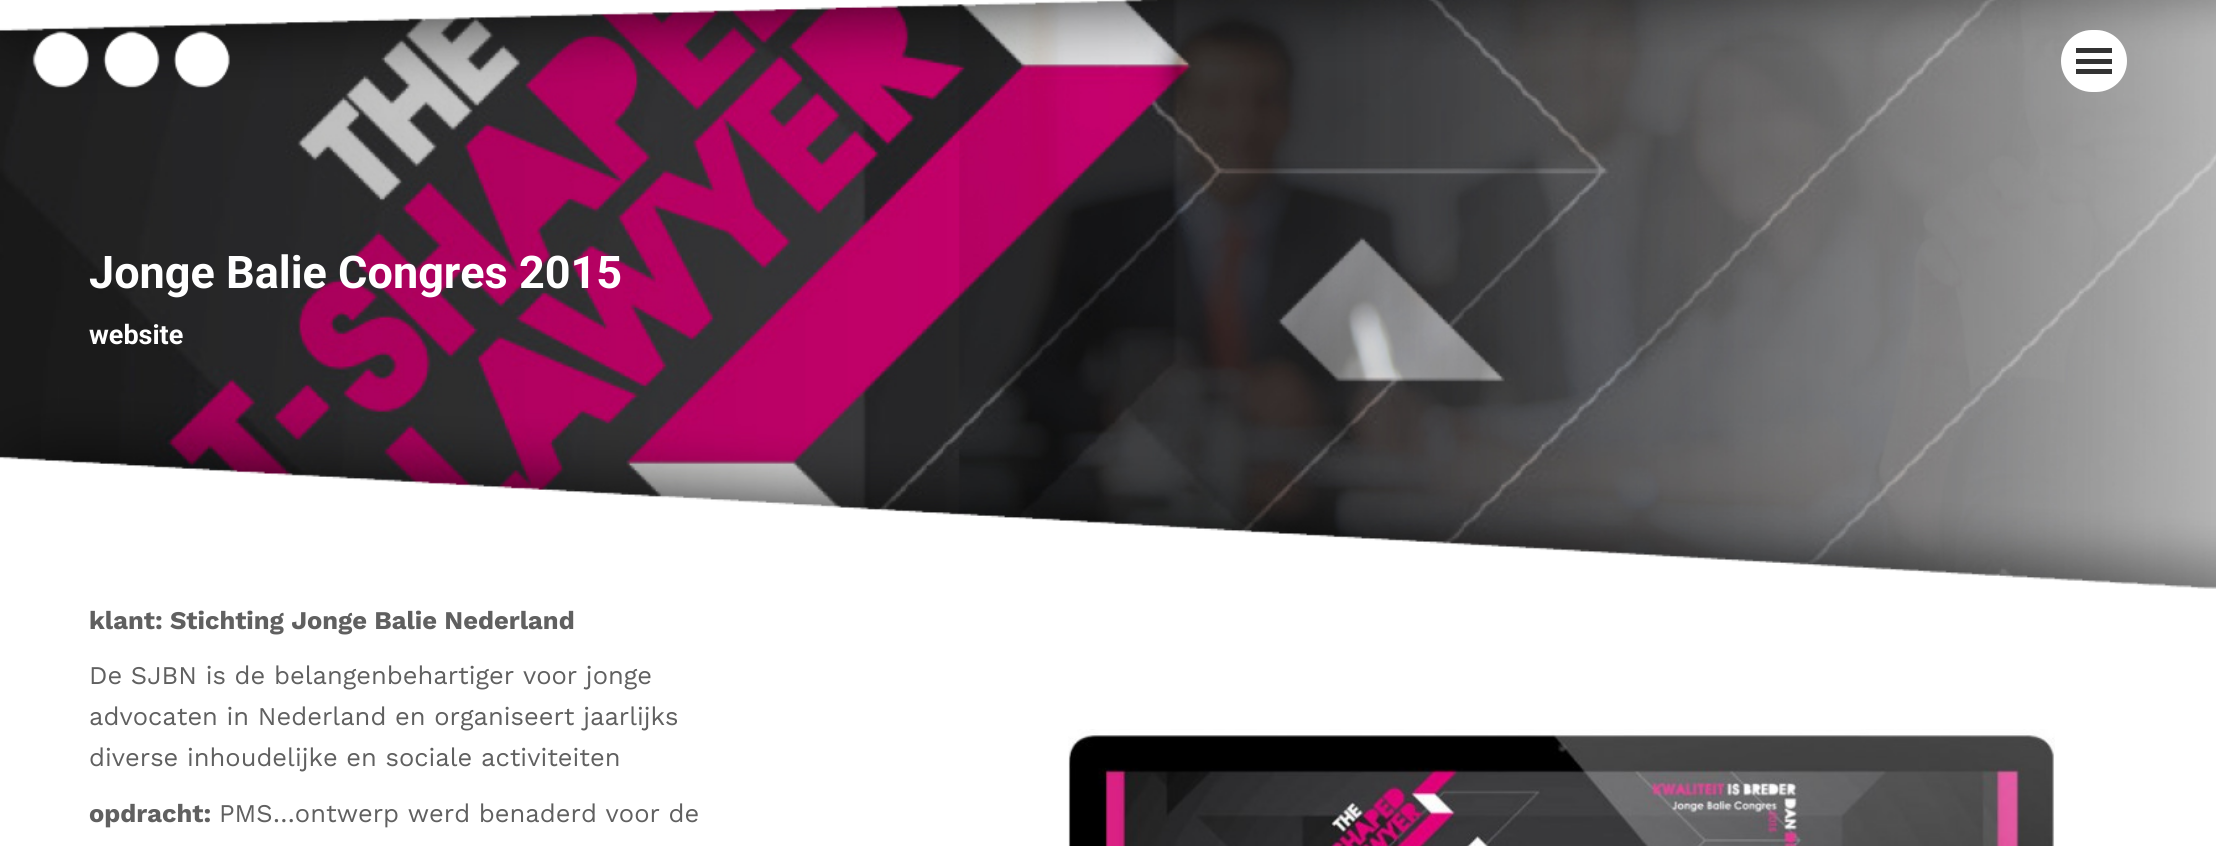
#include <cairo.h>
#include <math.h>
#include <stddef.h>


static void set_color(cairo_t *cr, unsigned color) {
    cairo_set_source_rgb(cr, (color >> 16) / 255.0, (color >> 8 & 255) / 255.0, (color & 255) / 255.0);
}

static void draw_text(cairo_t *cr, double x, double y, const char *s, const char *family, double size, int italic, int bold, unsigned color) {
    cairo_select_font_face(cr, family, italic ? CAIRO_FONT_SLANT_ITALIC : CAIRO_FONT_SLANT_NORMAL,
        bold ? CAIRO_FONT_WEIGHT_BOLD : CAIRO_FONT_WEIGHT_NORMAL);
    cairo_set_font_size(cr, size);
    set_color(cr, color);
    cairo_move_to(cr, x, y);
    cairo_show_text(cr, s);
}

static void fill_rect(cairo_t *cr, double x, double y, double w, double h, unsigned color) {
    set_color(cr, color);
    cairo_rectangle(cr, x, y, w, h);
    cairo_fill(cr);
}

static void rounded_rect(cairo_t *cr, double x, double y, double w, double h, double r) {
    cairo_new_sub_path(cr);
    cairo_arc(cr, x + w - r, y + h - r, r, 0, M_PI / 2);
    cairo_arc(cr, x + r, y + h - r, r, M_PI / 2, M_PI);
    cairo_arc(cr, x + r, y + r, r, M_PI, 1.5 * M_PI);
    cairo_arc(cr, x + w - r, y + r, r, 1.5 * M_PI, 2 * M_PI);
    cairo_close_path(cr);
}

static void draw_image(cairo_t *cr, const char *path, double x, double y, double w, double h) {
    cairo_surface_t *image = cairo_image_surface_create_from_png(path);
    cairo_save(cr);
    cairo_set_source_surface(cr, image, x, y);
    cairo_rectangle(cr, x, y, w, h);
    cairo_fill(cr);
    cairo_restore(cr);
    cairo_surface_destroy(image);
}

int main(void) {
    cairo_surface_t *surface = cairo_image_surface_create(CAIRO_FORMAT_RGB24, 2216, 846);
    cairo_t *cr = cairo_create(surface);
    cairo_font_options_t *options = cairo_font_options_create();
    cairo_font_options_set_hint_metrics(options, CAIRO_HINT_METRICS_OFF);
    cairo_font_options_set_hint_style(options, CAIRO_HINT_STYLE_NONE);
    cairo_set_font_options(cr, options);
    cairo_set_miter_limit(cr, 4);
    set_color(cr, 0xFFFFFF);
    cairo_paint(cr);
    draw_image(cr, "assets/img2.png", 0, 0, 2216, 589);
    draw_image(cr, "assets/img1.png", 32, 31, 198, 57);
    set_color(cr, 0xFFFFFF);
    rounded_rect(cr, 2061, 30, 66, 62, 31);
    cairo_fill(cr);
    fill_rect(cr, 2076, 48, 36, 5, 0x333333);
    fill_rect(cr, 2076, 59, 36, 5, 0x333333);
    fill_rect(cr, 2076, 69, 36, 5, 0x333333);
    draw_text(cr, 89, 288, "Jonge Balie Congres 2015", "Roboto", 45, 0, 1, 0xFFFFFF);
    draw_text(cr, 89, 344, "website", "Roboto", 27, 0, 1, 0xFFFFFF);
    draw_text(cr, 89, 629, "klant: Stichting Jonge Balie Nederland", "Work Sans", 25.5, 0, 1, 0x606060);
    draw_text(cr, 89, 684, "De SJBN is de belangenbehartiger voor jonge", "Work Sans", 25.5, 0, 0, 0x606060);
    draw_text(cr, 89, 725, "advocaten in Nederland en organiseert jaarlijks", "Work Sans", 25.5, 0, 0, 0x606060);
    draw_text(cr, 89, 766, "diverse inhoudelijke en sociale activiteiten", "Work Sans", 25.5, 0, 0, 0x606060);
    draw_text(cr, 89, 822, "opdracht:", "Work Sans", 25.5, 0, 1, 0x606060);
    draw_text(cr, 219, 822, "PMS…ontwerp werd benaderd voor de", "Work Sans", 25.5, 0, 0, 0x606060);
    draw_image(cr, "assets/img3.png", 1068, 729, 987, 117);
    cairo_surface_write_to_png(surface, "output.png");
    cairo_font_options_destroy(options);
    cairo_destroy(cr);
    cairo_surface_destroy(surface);
    return 0;
}
